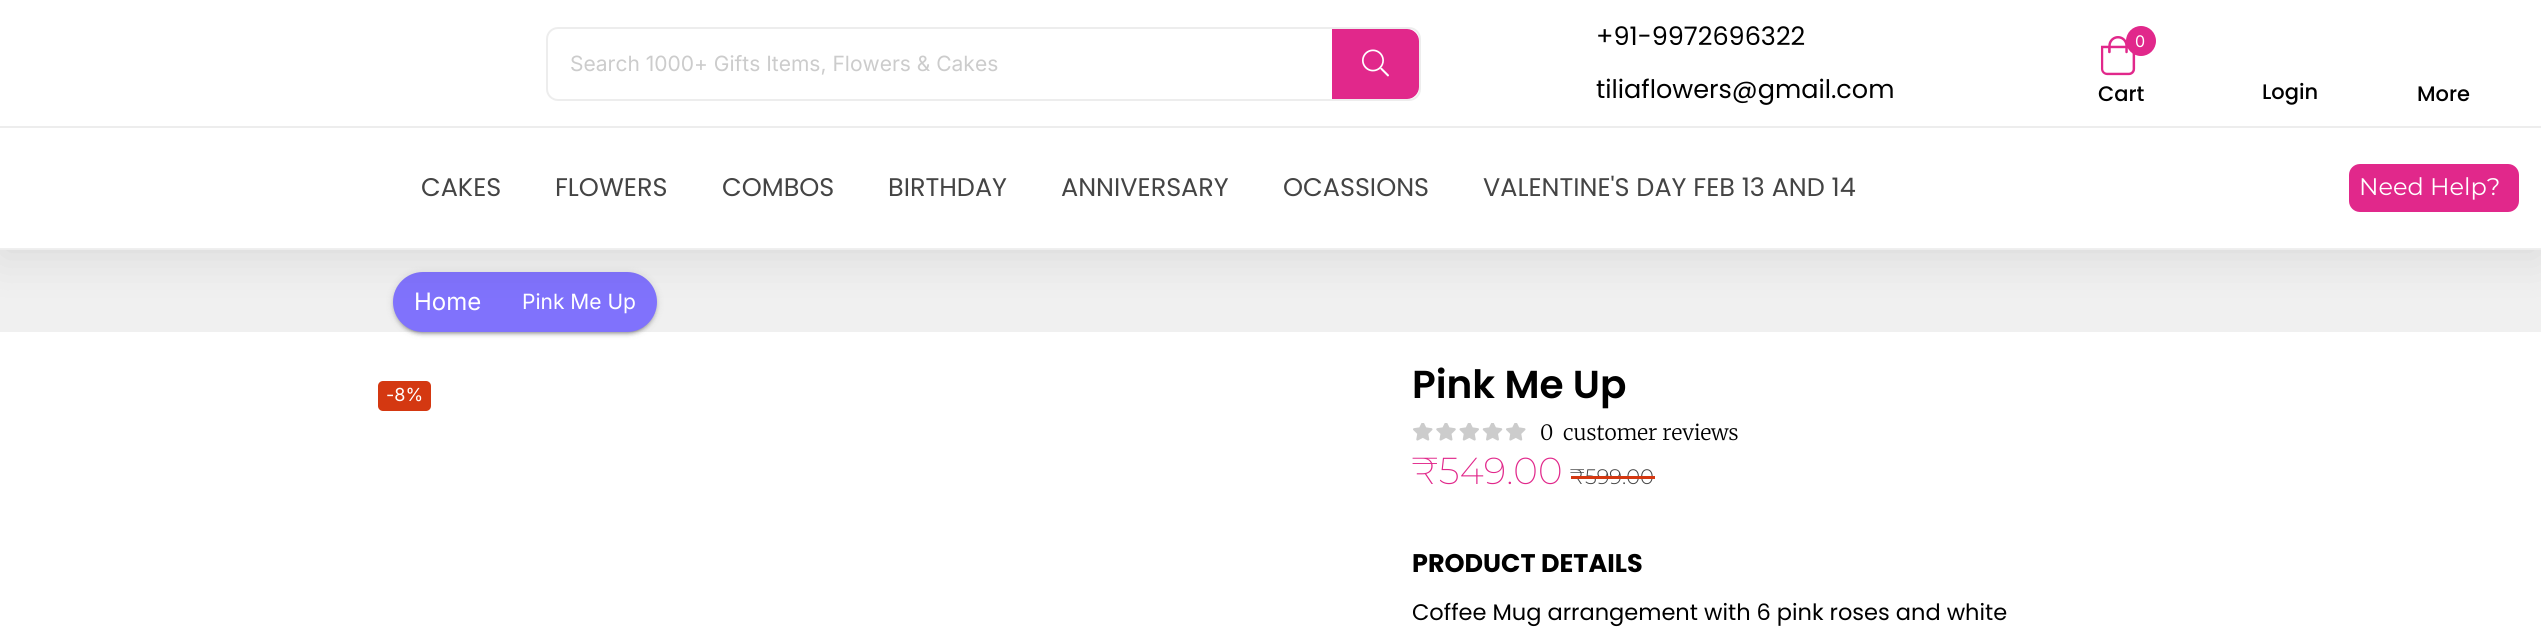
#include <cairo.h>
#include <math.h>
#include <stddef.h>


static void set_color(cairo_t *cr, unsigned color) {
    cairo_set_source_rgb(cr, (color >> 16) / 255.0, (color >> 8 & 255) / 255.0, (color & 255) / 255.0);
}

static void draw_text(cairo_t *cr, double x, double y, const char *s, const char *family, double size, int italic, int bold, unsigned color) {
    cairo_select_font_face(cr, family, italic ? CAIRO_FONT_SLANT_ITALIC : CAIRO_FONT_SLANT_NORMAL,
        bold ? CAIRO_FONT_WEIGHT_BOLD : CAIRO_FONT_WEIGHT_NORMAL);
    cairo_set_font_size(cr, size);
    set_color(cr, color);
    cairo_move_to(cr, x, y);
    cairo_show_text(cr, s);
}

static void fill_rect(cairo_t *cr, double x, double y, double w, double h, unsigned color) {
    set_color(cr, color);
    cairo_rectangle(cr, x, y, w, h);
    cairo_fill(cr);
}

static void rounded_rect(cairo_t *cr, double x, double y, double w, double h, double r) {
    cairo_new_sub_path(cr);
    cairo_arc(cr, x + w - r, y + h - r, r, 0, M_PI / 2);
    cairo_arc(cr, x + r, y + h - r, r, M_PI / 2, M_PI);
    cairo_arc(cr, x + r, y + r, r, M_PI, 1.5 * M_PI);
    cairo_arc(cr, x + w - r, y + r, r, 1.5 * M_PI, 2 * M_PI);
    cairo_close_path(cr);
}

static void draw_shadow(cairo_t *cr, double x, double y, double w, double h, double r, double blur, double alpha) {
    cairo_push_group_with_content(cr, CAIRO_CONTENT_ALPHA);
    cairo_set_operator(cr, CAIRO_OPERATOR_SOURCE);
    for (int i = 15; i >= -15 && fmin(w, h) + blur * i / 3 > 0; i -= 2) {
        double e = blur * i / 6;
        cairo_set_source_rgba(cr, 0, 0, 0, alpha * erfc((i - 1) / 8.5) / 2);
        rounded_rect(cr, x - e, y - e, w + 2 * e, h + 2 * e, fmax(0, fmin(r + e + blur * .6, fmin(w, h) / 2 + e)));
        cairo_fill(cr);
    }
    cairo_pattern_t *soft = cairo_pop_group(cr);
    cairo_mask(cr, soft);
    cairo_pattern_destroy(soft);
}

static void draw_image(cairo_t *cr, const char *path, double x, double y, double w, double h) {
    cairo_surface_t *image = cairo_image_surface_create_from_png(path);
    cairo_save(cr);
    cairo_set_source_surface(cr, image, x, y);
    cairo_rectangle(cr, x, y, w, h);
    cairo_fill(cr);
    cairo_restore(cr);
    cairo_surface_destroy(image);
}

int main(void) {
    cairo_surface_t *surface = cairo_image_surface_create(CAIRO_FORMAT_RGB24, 2541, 642);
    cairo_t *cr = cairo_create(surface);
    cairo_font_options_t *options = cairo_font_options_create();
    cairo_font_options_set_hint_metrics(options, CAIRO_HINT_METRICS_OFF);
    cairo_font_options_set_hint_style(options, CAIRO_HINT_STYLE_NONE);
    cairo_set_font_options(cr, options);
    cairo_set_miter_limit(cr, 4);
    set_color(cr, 0xF0F0F0);
    cairo_paint(cr);
    fill_rect(cr, 0, 332, 2541, 310, 0xFFFFFF);
    set_color(cr, 0x000000);
    draw_shadow(cr, 396, 279, 258, 54, 27, 1, 0.2);
    draw_shadow(cr, 393, 273, 264, 60, 30, 4, 0.12);
    draw_shadow(cr, 393, 275, 264, 60, 30, 1.5, 0.14);
    set_color(cr, 0x8072FC);
    rounded_rect(cr, 393, 272, 264, 60, 30);
    cairo_fill(cr);
    set_color(cr, 0x000000);
    draw_shadow(cr, 0, 8, 2541, 249, 0, 22.5, 0.1);
    fill_rect(cr, 0, 0, 2541, 249, 0xFFFFFF);
    fill_rect(cr, 0, 126, 2541, 2, 0xEDEDED);
    rounded_rect(cr, 547, 28, 873, 72, 11);
    cairo_stroke(cr);
    draw_text(cr, 570, 71, "Search 1000+ Gifts Items, Flowers & Cakes", "Inter", 21, 0, 0, 0xCCCCCC);
    set_color(cr, 0xE1288B);
    cairo_new_path(cr);
    cairo_move_to(cr, 1332, 29);
    cairo_line_to(cr, 1407, 29);
    cairo_curve_to(cr, 1413.5, 29, 1419, 34.5, 1419, 41);
    cairo_line_to(cr, 1419, 87);
    cairo_curve_to(cr, 1419, 93.5, 1413.5, 99, 1407, 99);
    cairo_line_to(cr, 1332, 99);
    cairo_close_path(cr);
    cairo_fill(cr);
    draw_image(cr, "assets/img1.png", 1362, 49, 27, 28);
    draw_text(cr, 1596, 45, "+91-9972696322", "Poppins", 25.5, 0, 0, 0x000000);
    draw_text(cr, 1596, 98, "tiliaflowers@gmail.com", "Poppins", 25.5, 0, 0, 0x000000);
    draw_image(cr, "assets/img2.png", 2100, 36, 36, 40);
    set_color(cr, 0xE1288B);
    cairo_arc(cr, 2141, 41, 15, 0, 2 * M_PI);
    cairo_fill(cr);
    draw_text(cr, 2135, 47, "0", "Inter", 16, 0, 0, 0xFFFFFF);
    draw_text(cr, 2098, 101, "Cart", "Poppins Medium", 21, 0, 0, 0x000000);
    draw_text(cr, 2262, 99, "Login", "Poppins Medium", 21, 0, 0, 0x000000);
    draw_text(cr, 2417, 101, "More", "Poppins Medium", 21, 0, 0, 0x000000);
    cairo_set_source_rgba(cr, 0.933, 0.933, 0.933, 0.93);
    cairo_rectangle(cr, 0, 248, 2541, 2);
    cairo_fill(cr);
    draw_text(cr, 421, 196, "CAKES", "Poppins", 25.5, 0, 0, 0x444444);
    draw_text(cr, 555, 196, "FLOWERS", "Poppins", 25.5, 0, 0, 0x444444);
    draw_text(cr, 722, 196, "COMBOS", "Poppins", 25.5, 0, 0, 0x444444);
    draw_text(cr, 888, 196, "BIRTHDAY", "Poppins", 25.5, 0, 0, 0x444444);
    draw_text(cr, 1061, 196, "ANNIVERSARY", "Poppins", 25.5, 0, 0, 0x444444);
    draw_text(cr, 1283, 196, "OCASSIONS", "Poppins", 25.5, 0, 0, 0x444444);
    draw_text(cr, 1483, 196, "VALENTINE'S DAY FEB 13 AND 14", "Poppins", 25.5, 0, 0, 0x444444);
    set_color(cr, 0xE1288B);
    rounded_rect(cr, 2350, 165, 168, 46, 10);
    cairo_fill_preserve(cr);
    cairo_stroke(cr);
    draw_text(cr, 2359, 195, "Need Help?", "Montserrat", 24, 0, 0, 0xFFFFFF);
    draw_text(cr, 414, 310, "Home", "Inter", 24, 0, 0, 0xFFFFFF);
    draw_text(cr, 522, 309, "Pink Me Up", "Inter", 21, 0, 0, 0xFFFFFF);
    set_color(cr, 0xD43811);
    rounded_rect(cr, 378, 381, 53, 30, 5);
    cairo_fill(cr);
    draw_text(cr, 386, 401, "-8%", "Inter", 18, 0, 0, 0xFFFFFF);
    draw_text(cr, 1412, 398, "Pink Me Up", "Poppins SemiBold", 39, 0, 0, 0x000000);
    draw_image(cr, "assets/img3.png", 1413, 423, 113, 18);
    draw_text(cr, 1540, 440, "0", "Merriweather Light", 21, 0, 0, 0x000000);
    draw_text(cr, 1563, 440, "customer reviews", "Merriweather Light", 21, 0, 0, 0x000000);
    draw_text(cr, 1412, 484, "₹549.00", "Montserrat ExtraLight", 37.5, 0, 0, 0xE1288B);
    draw_text(cr, 1570, 484, "₹", "Montserrat Light", 21, 0, 0, 0x444444);
    fill_rect(cr, 1571, 476, 15, 3, 0xD43811);
    draw_text(cr, 1585, 484, "599.00", "Montserrat Light", 21, 0, 0, 0x444444);
    fill_rect(cr, 1586, 476, 69, 3, 0xD43811);
    draw_text(cr, 1412, 572, "PRODUCT DETAILS", "Poppins", 25.5, 0, 1, 0x000000);
    draw_text(cr, 1412, 620, "Coffee Mug arrangement with 6 pink roses and white", "Poppins", 22.5, 0, 0, 0x000000);
    cairo_surface_write_to_png(surface, "output.png");
    cairo_font_options_destroy(options);
    cairo_destroy(cr);
    cairo_surface_destroy(surface);
    return 0;
}
